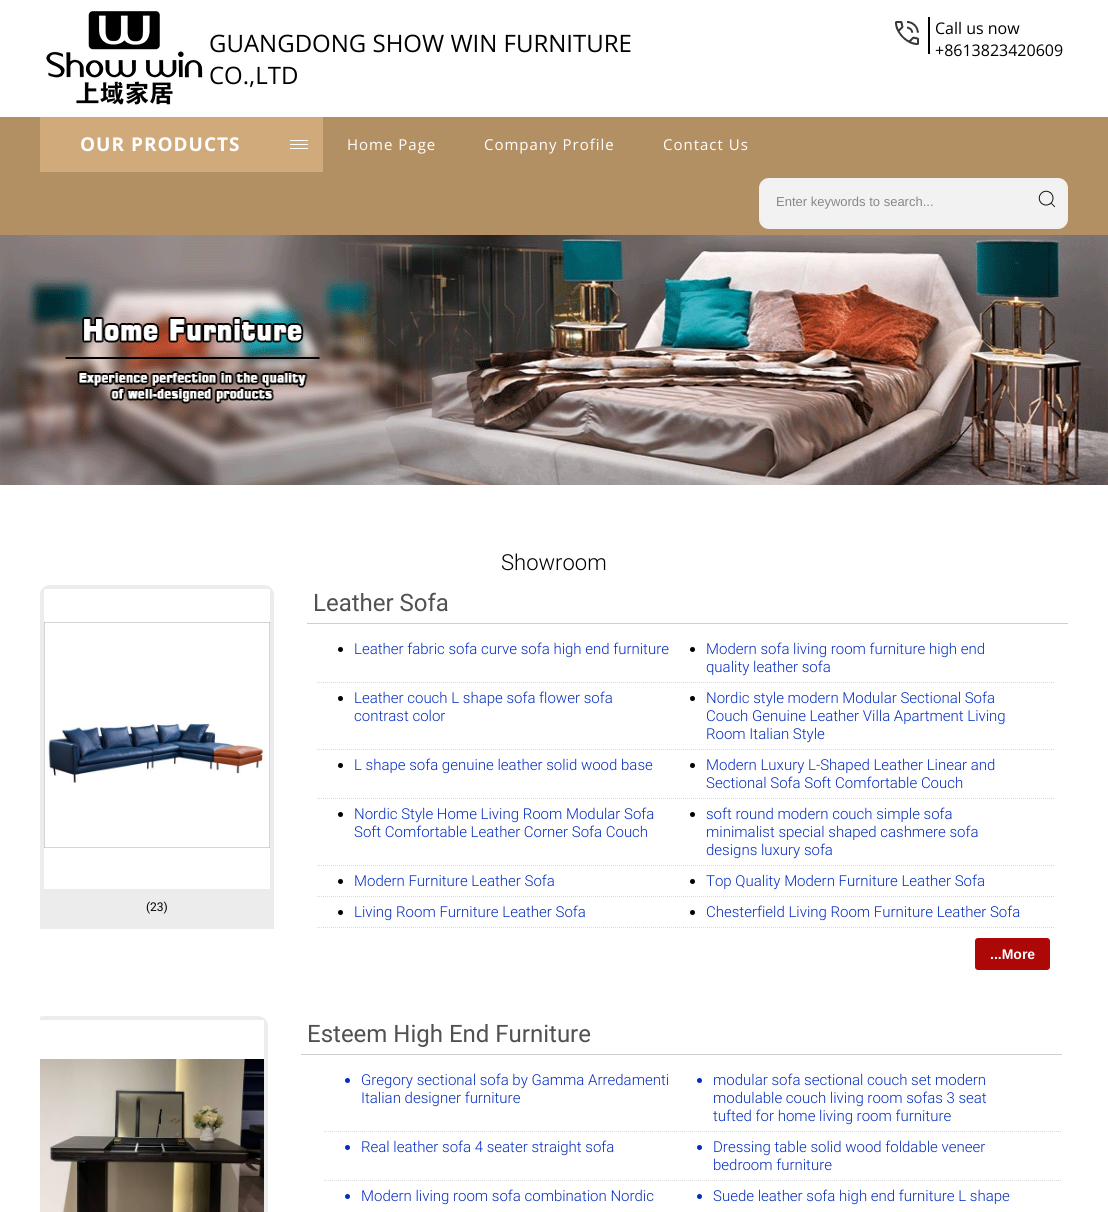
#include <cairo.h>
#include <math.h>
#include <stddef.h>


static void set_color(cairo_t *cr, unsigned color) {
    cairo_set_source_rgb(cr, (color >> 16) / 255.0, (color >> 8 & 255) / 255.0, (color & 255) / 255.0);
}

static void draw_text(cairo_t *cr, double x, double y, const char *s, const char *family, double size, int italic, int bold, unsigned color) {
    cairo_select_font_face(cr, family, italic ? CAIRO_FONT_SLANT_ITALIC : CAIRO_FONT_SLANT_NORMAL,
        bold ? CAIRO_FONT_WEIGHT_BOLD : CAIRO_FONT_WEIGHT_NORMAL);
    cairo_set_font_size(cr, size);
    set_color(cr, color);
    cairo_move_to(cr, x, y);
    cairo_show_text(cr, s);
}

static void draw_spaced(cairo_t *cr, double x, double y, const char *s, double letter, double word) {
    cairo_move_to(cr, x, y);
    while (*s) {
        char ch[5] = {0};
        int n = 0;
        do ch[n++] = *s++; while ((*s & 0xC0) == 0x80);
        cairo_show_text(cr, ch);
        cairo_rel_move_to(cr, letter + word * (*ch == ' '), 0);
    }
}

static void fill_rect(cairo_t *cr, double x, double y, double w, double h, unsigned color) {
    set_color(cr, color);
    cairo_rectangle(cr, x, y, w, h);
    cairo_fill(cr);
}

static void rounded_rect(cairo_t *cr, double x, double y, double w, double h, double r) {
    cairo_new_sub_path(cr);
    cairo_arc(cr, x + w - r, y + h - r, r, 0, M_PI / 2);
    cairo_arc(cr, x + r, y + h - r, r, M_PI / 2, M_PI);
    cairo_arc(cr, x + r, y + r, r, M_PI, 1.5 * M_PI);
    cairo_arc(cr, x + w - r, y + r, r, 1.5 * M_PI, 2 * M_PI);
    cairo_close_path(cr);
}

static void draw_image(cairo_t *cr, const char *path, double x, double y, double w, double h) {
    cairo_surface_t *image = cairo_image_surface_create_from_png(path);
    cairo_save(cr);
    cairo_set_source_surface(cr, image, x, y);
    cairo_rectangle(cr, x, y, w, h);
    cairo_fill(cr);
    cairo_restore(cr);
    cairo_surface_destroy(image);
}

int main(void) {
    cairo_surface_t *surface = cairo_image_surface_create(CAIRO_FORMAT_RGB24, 1108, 1212);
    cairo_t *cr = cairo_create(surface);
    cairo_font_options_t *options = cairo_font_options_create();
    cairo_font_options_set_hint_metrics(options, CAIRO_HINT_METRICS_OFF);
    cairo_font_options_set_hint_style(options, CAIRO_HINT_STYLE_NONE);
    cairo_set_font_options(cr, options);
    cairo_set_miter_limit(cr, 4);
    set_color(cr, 0xFFFFFF);
    cairo_paint(cr);
    draw_image(cr, "assets/img1.png", 46, 11, 157, 94);
    draw_text(cr, 209, 52, "GUANGDONG SHOW WIN FURNITURE", "Open Sans", 24, 0, 0, 0x000000);
    draw_text(cr, 209, 84, "CO.,LTD", "Open Sans", 24, 0, 0, 0x000000);
    draw_image(cr, "assets/img2.png", 895, 21, 24, 24);
    fill_rect(cr, 928, 17, 2, 37, 0x000000);
    draw_text(cr, 935, 34, "Call us now", "Open Sans", 16, 0, 0, 0x000000);
    draw_text(cr, 935, 56, "+8613823420609", "Open Sans", 16, 0, 0, 0x000000);
    fill_rect(cr, 0, 117, 1108, 118, 0xB38F64);
    fill_rect(cr, 40, 117, 283, 55, 0xD1AA7B);
    draw_image(cr, "assets/img3.png", 290, 140, 18, 9);
    cairo_select_font_face(cr, "Open Sans", CAIRO_FONT_SLANT_NORMAL, CAIRO_FONT_WEIGHT_BOLD);
    cairo_set_font_size(cr, 19);
    set_color(cr, 0xFFFFFF);
    draw_spaced(cr, 80, 151, "OUR PRODUCTS", 1, 0);
    cairo_select_font_face(cr, "Open Sans", CAIRO_FONT_SLANT_NORMAL, CAIRO_FONT_WEIGHT_NORMAL);
    cairo_set_font_size(cr, 15);
    draw_spaced(cr, 347, 150, "Home Page", 1, 0);
    draw_spaced(cr, 484, 150, "Company Profile", 1, 0);
    draw_spaced(cr, 663, 150, "Contact Us", 1, 0);
    set_color(cr, 0xF2F2F2);
    rounded_rect(cr, 760.5, 179.5, 306, 48, 8.5);
    cairo_fill_preserve(cr);
    set_color(cr, 0xF1F1F1);
    cairo_set_line_width(cr, 3);
    cairo_stroke(cr);
    draw_text(cr, 776, 206, "Enter keywords to search...", "Liberation Sans", 13, 0, 0, 0x888888);
    draw_image(cr, "assets/img4.png", 1038, 190, 18, 18);
    draw_image(cr, "assets/img5.png", 0, 235, 1108, 250);
    draw_text(cr, 501, 570, "Showroom", "Roboto Light", 22, 0, 0, 0x000000);
    fill_rect(cr, 307, 623, 761, 1, 0xCFCFCF);
    draw_text(cr, 313, 611, "Leather Sofa", "Roboto", 24, 0, 0, 0x505151);
    set_color(cr, 0xECECEC);
    cairo_new_path(cr);
    cairo_move_to(cr, 50, 585);
    cairo_line_to(cr, 264, 585);
    cairo_curve_to(cr, 269.5, 585, 274, 589.5, 274, 595);
    cairo_line_to(cr, 274, 929);
    cairo_line_to(cr, 40, 929);
    cairo_line_to(cr, 40, 595);
    cairo_curve_to(cr, 40, 589.5, 44.5, 585, 50, 585);
    cairo_close_path(cr);
    cairo_fill(cr);
    fill_rect(cr, 44, 589, 226, 300, 0xFFFFFF);
    draw_image(cr, "assets/img6.png", 44, 622, 226, 226);
    draw_text(cr, 146, 911, "(23)", "Roboto", 12, 0, 0, 0x000000);
    cairo_new_path(cr);
    cairo_move_to(cr, 317, 682.5);
    cairo_line_to(cr, 1055, 682.5);
    set_color(cr, 0xDADADA);
    cairo_set_line_width(cr, 1);
    cairo_set_dash(cr, (double[]){1, 1}, 2, 0);
    cairo_stroke(cr);
    set_color(cr, 0x000000);
    cairo_arc(cr, 340.5, 649.5, 2.5, 0, 2 * M_PI);
    cairo_fill(cr);
    draw_text(cr, 354, 654, "Leather fabric sofa curve sofa high end furniture", "Roboto Light", 15, 0, 0, 0x032CC0);
    set_color(cr, 0x000000);
    cairo_new_path(cr);
    cairo_arc(cr, 692.5, 649.5, 2.5, 0, 2 * M_PI);
    cairo_fill(cr);
    draw_text(cr, 706, 654, "Modern sofa living room furniture high end", "Roboto Light", 15, 0, 0, 0x032CC0);
    draw_text(cr, 706, 672, "quality leather sofa", "Roboto Light", 15, 0, 0, 0x032CC0);
    cairo_new_path(cr);
    cairo_move_to(cr, 317, 749.5);
    cairo_line_to(cr, 1055, 749.5);
    set_color(cr, 0xDADADA);
    cairo_stroke(cr);
    set_color(cr, 0x000000);
    cairo_arc(cr, 340.5, 698.5, 2.5, 0, 2 * M_PI);
    cairo_fill(cr);
    draw_text(cr, 354, 703, "Leather couch L shape sofa flower sofa", "Roboto Light", 15, 0, 0, 0x032CC0);
    draw_text(cr, 354, 721, "contrast color", "Roboto Light", 15, 0, 0, 0x032CC0);
    set_color(cr, 0x000000);
    cairo_new_path(cr);
    cairo_arc(cr, 692.5, 698.5, 2.5, 0, 2 * M_PI);
    cairo_fill(cr);
    draw_text(cr, 706, 703, "Nordic style modern Modular Sectional Sofa", "Roboto Light", 15, 0, 0, 0x032CC0);
    draw_text(cr, 706, 721, "Couch Genuine Leather Villa Apartment Living", "Roboto Light", 15, 0, 0, 0x032CC0);
    draw_text(cr, 706, 739, "Room Italian Style", "Roboto Light", 15, 0, 0, 0x032CC0);
    cairo_new_path(cr);
    cairo_move_to(cr, 317, 798.5);
    cairo_line_to(cr, 1055, 798.5);
    set_color(cr, 0xDADADA);
    cairo_stroke(cr);
    set_color(cr, 0x000000);
    cairo_arc(cr, 340.5, 765.5, 2.5, 0, 2 * M_PI);
    cairo_fill(cr);
    draw_text(cr, 354, 770, "L shape sofa genuine leather solid wood base", "Roboto Light", 15, 0, 0, 0x032CC0);
    set_color(cr, 0x000000);
    cairo_new_path(cr);
    cairo_arc(cr, 692.5, 765.5, 2.5, 0, 2 * M_PI);
    cairo_fill(cr);
    draw_text(cr, 706, 770, "Modern Luxury L-Shaped Leather Linear and", "Roboto Light", 15, 0, 0, 0x032CC0);
    draw_text(cr, 706, 788, "Sectional Sofa Soft Comfortable Couch", "Roboto Light", 15, 0, 0, 0x032CC0);
    cairo_new_path(cr);
    cairo_move_to(cr, 317, 865.5);
    cairo_line_to(cr, 1055, 865.5);
    set_color(cr, 0xDADADA);
    cairo_stroke(cr);
    set_color(cr, 0x000000);
    cairo_arc(cr, 340.5, 814.5, 2.5, 0, 2 * M_PI);
    cairo_fill(cr);
    draw_text(cr, 354, 819, "Nordic Style Home Living Room Modular Sofa", "Roboto Light", 15, 0, 0, 0x032CC0);
    draw_text(cr, 354, 837, "Soft Comfortable Leather Corner Sofa Couch", "Roboto Light", 15, 0, 0, 0x032CC0);
    set_color(cr, 0x000000);
    cairo_new_path(cr);
    cairo_arc(cr, 692.5, 814.5, 2.5, 0, 2 * M_PI);
    cairo_fill(cr);
    draw_text(cr, 706, 819, "soft round modern couch simple sofa", "Roboto Light", 15, 0, 0, 0x032CC0);
    draw_text(cr, 706, 837, "minimalist special shaped cashmere sofa", "Roboto Light", 15, 0, 0, 0x032CC0);
    draw_text(cr, 706, 855, "designs luxury sofa", "Roboto Light", 15, 0, 0, 0x032CC0);
    cairo_new_path(cr);
    cairo_move_to(cr, 317, 896.5);
    cairo_line_to(cr, 1055, 896.5);
    set_color(cr, 0xDADADA);
    cairo_stroke(cr);
    set_color(cr, 0x000000);
    cairo_arc(cr, 340.5, 881.5, 2.5, 0, 2 * M_PI);
    cairo_fill(cr);
    draw_text(cr, 354, 886, "Modern Furniture Leather Sofa", "Roboto Light", 15, 0, 0, 0x032CC0);
    set_color(cr, 0x000000);
    cairo_new_path(cr);
    cairo_arc(cr, 692.5, 881.5, 2.5, 0, 2 * M_PI);
    cairo_fill(cr);
    draw_text(cr, 706, 886, "Top Quality Modern Furniture Leather Sofa", "Roboto Light", 15, 0, 0, 0x032CC0);
    cairo_new_path(cr);
    cairo_move_to(cr, 317, 927.5);
    cairo_line_to(cr, 1055, 927.5);
    set_color(cr, 0xDADADA);
    cairo_stroke(cr);
    set_color(cr, 0x000000);
    cairo_arc(cr, 340.5, 912.5, 2.5, 0, 2 * M_PI);
    cairo_fill(cr);
    draw_text(cr, 354, 917, "Living Room Furniture Leather Sofa", "Roboto Light", 15, 0, 0, 0x032CC0);
    set_color(cr, 0x000000);
    cairo_new_path(cr);
    cairo_arc(cr, 692.5, 912.5, 2.5, 0, 2 * M_PI);
    cairo_fill(cr);
    draw_text(cr, 706, 917, "Chesterfield Living Room Furniture Leather Sofa", "Roboto Light", 15, 0, 0, 0x032CC0);
    set_color(cr, 0xAD0808);
    rounded_rect(cr, 975, 938, 75, 32, 3);
    cairo_fill(cr);
    draw_text(cr, 990, 959, "...More", "Liberation Sans", 14, 0, 1, 0xFFFFFF);
    cairo_save(cr);
    cairo_rectangle(cr, 40, 585, 1028, 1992);
    cairo_clip(cr);
    set_color(cr, 0xECECEC);
    cairo_new_path(cr);
    cairo_move_to(cr, 44, 1016);
    cairo_line_to(cr, 258, 1016);
    cairo_curve_to(cr, 263.5, 1016, 268, 1020.5, 268, 1026);
    cairo_line_to(cr, 268, 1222);
    cairo_line_to(cr, 34, 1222);
    cairo_line_to(cr, 34, 1026);
    cairo_curve_to(cr, 34, 1020.5, 38.5, 1016, 44, 1016);
    cairo_close_path(cr);
    cairo_fill(cr);
    cairo_restore(cr);
    fill_rect(cr, 40, 1020, 224, 39, 0xFFFFFF);
    draw_image(cr, "assets/img7.png", 40, 1059, 224, 153);
    fill_rect(cr, 301, 1054, 761, 1, 0xCFCFCF);
    draw_text(cr, 307, 1042, "Esteem High End Furniture", "Roboto", 24, 0, 0, 0x505151);
    cairo_new_path(cr);
    cairo_move_to(cr, 324, 1131.5);
    cairo_line_to(cr, 1062, 1131.5);
    set_color(cr, 0xDADADA);
    cairo_stroke(cr);
    set_color(cr, 0x032CC0);
    cairo_arc(cr, 347.5, 1080.5, 2.5, 0, 2 * M_PI);
    cairo_fill(cr);
    draw_text(cr, 361, 1085, "Gregory sectional sofa by Gamma Arredamenti", "Roboto Light", 15, 0, 0, 0x032CC0);
    draw_text(cr, 361, 1103, "Italian designer furniture", "Roboto Light", 15, 0, 0, 0x032CC0);
    cairo_new_path(cr);
    cairo_arc(cr, 699.5, 1080.5, 2.5, 0, 2 * M_PI);
    cairo_fill(cr);
    draw_text(cr, 713, 1085, "modular sofa sectional couch set modern", "Roboto Light", 15, 0, 0, 0x032CC0);
    draw_text(cr, 713, 1103, "modulable couch living room sofas 3 seat", "Roboto Light", 15, 0, 0, 0x032CC0);
    draw_text(cr, 713, 1121, "tufted for home living room furniture", "Roboto Light", 15, 0, 0, 0x032CC0);
    cairo_new_path(cr);
    cairo_move_to(cr, 324, 1180.5);
    cairo_line_to(cr, 1062, 1180.5);
    set_color(cr, 0xDADADA);
    cairo_stroke(cr);
    set_color(cr, 0x032CC0);
    cairo_arc(cr, 347.5, 1147.5, 2.5, 0, 2 * M_PI);
    cairo_fill(cr);
    draw_text(cr, 361, 1152, "Real leather sofa 4 seater straight sofa", "Roboto Light", 15, 0, 0, 0x032CC0);
    cairo_new_path(cr);
    cairo_arc(cr, 699.5, 1147.5, 2.5, 0, 2 * M_PI);
    cairo_fill(cr);
    draw_text(cr, 713, 1152, "Dressing table solid wood foldable veneer", "Roboto Light", 15, 0, 0, 0x032CC0);
    draw_text(cr, 713, 1170, "bedroom furniture", "Roboto Light", 15, 0, 0, 0x032CC0);
    cairo_new_path(cr);
    cairo_arc(cr, 347.5, 1196.5, 2.5, 0, 2 * M_PI);
    cairo_fill(cr);
    draw_text(cr, 361, 1201, "Modern living room sofa combination Nordic", "Roboto Light", 15, 0, 0, 0x032CC0);
    cairo_new_path(cr);
    cairo_arc(cr, 699.5, 1196.5, 2.5, 0, 2 * M_PI);
    cairo_fill(cr);
    draw_text(cr, 713, 1201, "Suede leather sofa high end furniture L shape", "Roboto Light", 15, 0, 0, 0x032CC0);
    cairo_surface_write_to_png(surface, "output.png");
    cairo_font_options_destroy(options);
    cairo_destroy(cr);
    cairo_surface_destroy(surface);
    return 0;
}
